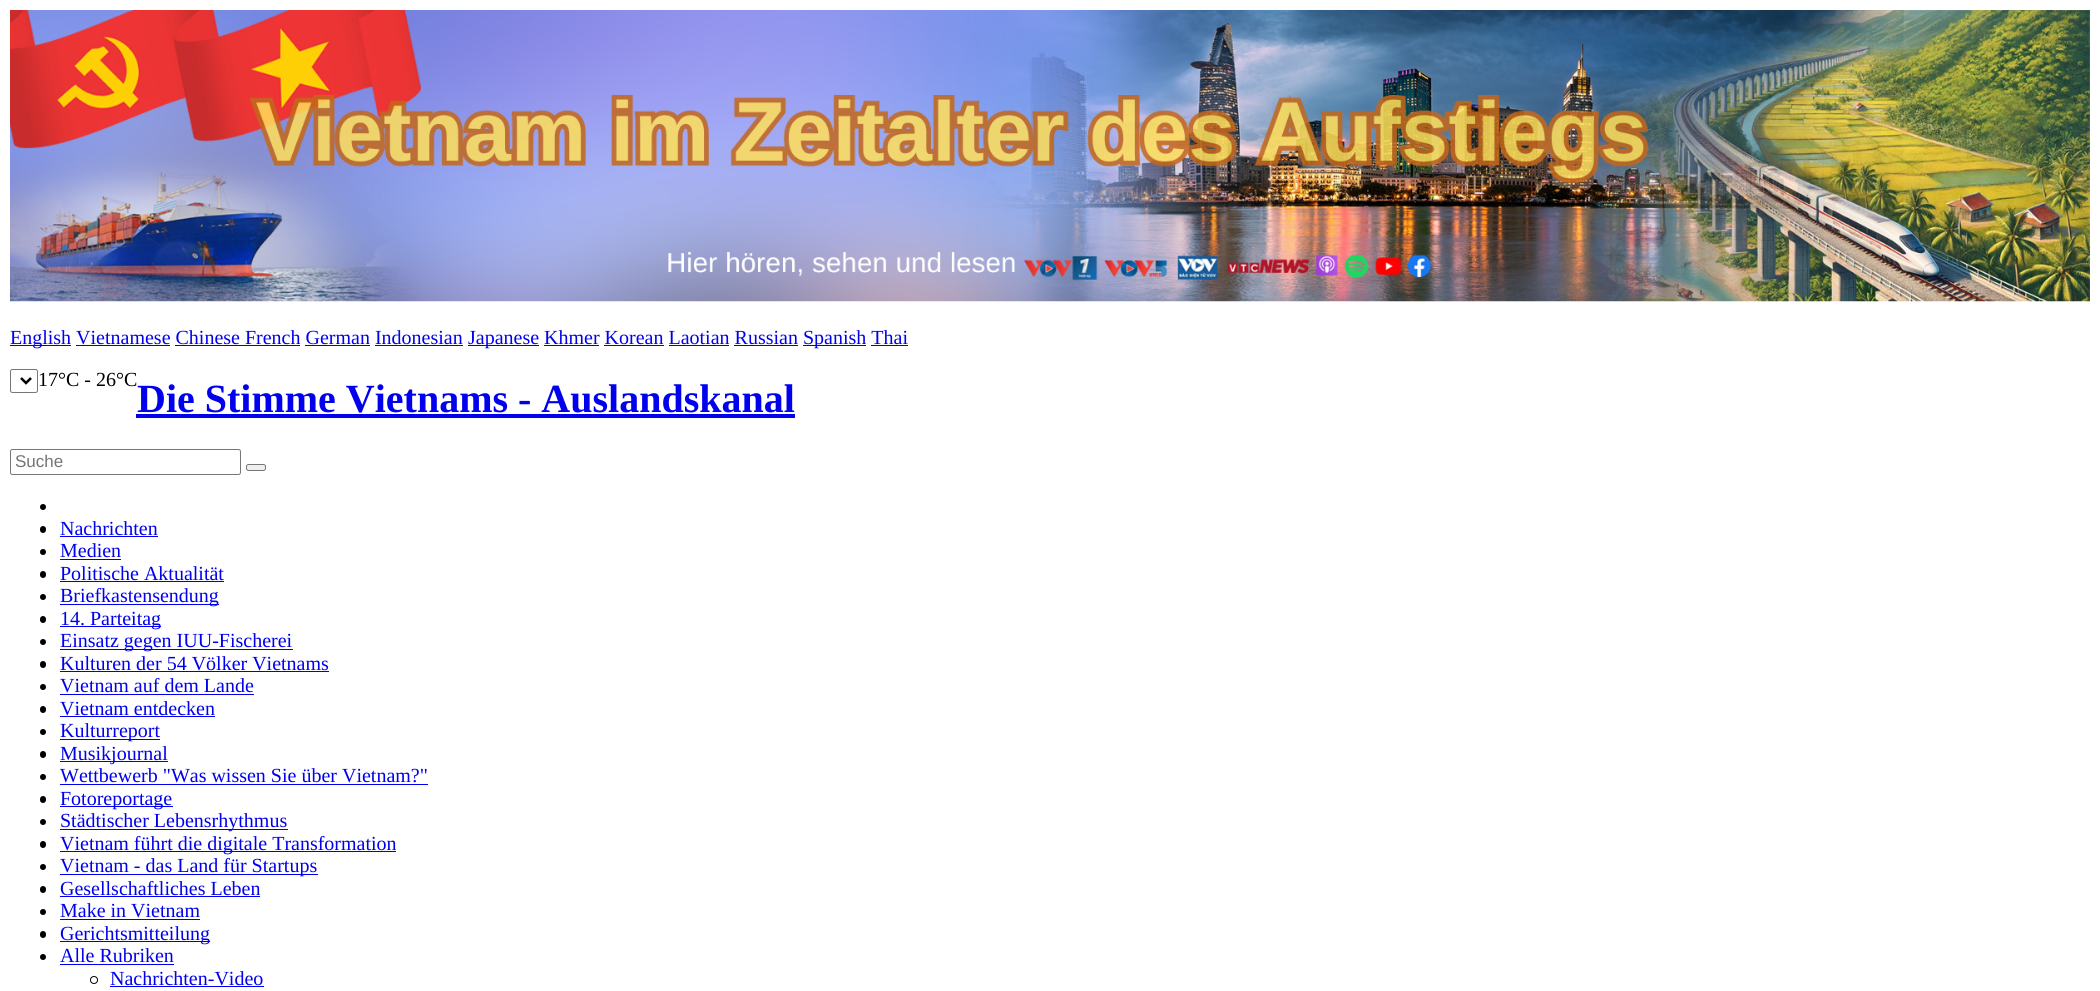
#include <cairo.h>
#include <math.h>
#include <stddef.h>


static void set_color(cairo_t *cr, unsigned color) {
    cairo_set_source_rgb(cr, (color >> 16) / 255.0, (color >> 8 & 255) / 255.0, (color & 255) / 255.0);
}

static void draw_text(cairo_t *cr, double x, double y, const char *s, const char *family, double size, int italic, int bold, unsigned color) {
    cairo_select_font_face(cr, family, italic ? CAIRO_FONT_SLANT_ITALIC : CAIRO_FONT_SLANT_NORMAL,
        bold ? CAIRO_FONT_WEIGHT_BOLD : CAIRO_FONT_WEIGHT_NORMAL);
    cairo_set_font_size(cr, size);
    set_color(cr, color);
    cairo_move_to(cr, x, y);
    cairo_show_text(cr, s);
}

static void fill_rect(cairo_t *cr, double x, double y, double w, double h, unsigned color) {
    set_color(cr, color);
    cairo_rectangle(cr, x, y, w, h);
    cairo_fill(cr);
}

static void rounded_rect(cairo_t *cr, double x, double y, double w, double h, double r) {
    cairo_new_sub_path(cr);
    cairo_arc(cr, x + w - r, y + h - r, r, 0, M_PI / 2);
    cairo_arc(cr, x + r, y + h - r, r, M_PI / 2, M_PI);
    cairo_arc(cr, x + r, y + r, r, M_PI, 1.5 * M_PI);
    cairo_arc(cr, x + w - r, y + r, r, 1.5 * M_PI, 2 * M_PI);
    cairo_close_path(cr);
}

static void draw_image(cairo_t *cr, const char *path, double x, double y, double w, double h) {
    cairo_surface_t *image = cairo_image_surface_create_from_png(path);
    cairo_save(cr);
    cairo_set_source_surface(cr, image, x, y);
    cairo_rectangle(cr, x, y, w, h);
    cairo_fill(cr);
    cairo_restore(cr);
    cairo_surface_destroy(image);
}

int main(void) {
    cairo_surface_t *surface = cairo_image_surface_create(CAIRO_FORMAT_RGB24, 2100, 991);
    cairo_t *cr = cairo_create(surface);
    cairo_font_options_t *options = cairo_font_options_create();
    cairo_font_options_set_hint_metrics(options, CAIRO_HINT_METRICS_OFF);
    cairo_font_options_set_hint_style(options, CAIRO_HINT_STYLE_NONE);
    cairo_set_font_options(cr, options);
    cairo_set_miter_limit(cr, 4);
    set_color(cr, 0xFFFFFF);
    cairo_paint(cr);
    draw_image(cr, "assets/img1.png", 10, 10, 2080, 292);
    fill_rect(cr, 10, 345, 61, 1, 0x0000EE);
    draw_text(cr, 10, 344, "English Vietnamese Chinese French German Indonesian", "Liberation Serif", 20, 0, 0, 0x0000EE);
    fill_rect(cr, 468, 345, 71, 1, 0x0000EE);
    draw_text(cr, 468, 344, "Japanese Khmer Korean Laotian Russian", "Liberation Serif", 20, 0, 0, 0x0000EE);
    fill_rect(cr, 803, 345, 63, 1, 0x0000EE);
    draw_text(cr, 803, 344, "Spanish Thai", "Liberation Serif", 20, 0, 0, 0x0000EE);
    fill_rect(cr, 76, 345, 94, 1, 0x0000EE);
    fill_rect(cr, 175, 345, 125, 1, 0x0000EE);
    fill_rect(cr, 305, 345, 65, 1, 0x0000EE);
    fill_rect(cr, 375, 345, 88, 1, 0x0000EE);
    fill_rect(cr, 544, 345, 55, 1, 0x0000EE);
    fill_rect(cr, 604, 345, 60, 1, 0x0000EE);
    fill_rect(cr, 669, 345, 60, 1, 0x0000EE);
    fill_rect(cr, 734, 345, 64, 1, 0x0000EE);
    fill_rect(cr, 871, 345, 37, 1, 0x0000EE);
    rounded_rect(cr, 10.5, 369.5, 27, 23, 2);
    set_color(cr, 0x767676);
    cairo_set_line_width(cr, 1);
    cairo_stroke(cr);
    cairo_new_path(cr);
    cairo_move_to(cr, 21, 378);
    cairo_line_to(cr, 26, 383);
    cairo_line_to(cr, 31, 378);
    set_color(cr, 0x000000);
    cairo_set_line_width(cr, 2.5);
    cairo_stroke(cr);
    draw_text(cr, 38, 386, "17°C - 26°C", "Liberation Serif", 20, 0, 0, 0x000000);
    draw_text(cr, 137, 412, "Die Stimme Vietnams - Auslandskanal", "Liberation Serif", 40, 0, 1, 0x0000EE);
    fill_rect(cr, 136, 414, 659, 4, 0x0000EE);
    rounded_rect(cr, 10.5, 449.5, 230, 25, 2);
    set_color(cr, 0x767676);
    cairo_set_line_width(cr, 1);
    cairo_stroke(cr);
    draw_text(cr, 15, 467, "Suche", "Liberation Sans", 17, 0, 0, 0x757575);
    set_color(cr, 0xEFEFEF);
    rounded_rect(cr, 246.5, 464.5, 19, 6, 2);
    cairo_fill_preserve(cr);
    set_color(cr, 0x767676);
    cairo_stroke(cr);
    set_color(cr, 0x000000);
    cairo_arc(cr, 43, 507, 3, 0, 2 * M_PI);
    cairo_fill(cr);
    rounded_rect(cr, 40, 526, 6, 7, 3);
    cairo_fill(cr);
    draw_text(cr, 60, 535, "Nachrichten", "Liberation Serif", 20, 0, 0, 0x0000EE);
    fill_rect(cr, 60, 536, 98, 1, 0x0000EE);
    set_color(cr, 0x000000);
    cairo_new_path(cr);
    cairo_arc(cr, 43, 552, 3, 0, 2 * M_PI);
    cairo_fill(cr);
    draw_text(cr, 60, 557, "Medien", "Liberation Serif", 20, 0, 0, 0x0000EE);
    fill_rect(cr, 60, 559, 61, 1, 0x0000EE);
    set_color(cr, 0x000000);
    rounded_rect(cr, 40, 571, 6, 7, 3);
    cairo_fill(cr);
    draw_text(cr, 60, 580, "Politische Aktualität", "Liberation Serif", 20, 0, 0, 0x0000EE);
    fill_rect(cr, 60, 581, 164, 1, 0x0000EE);
    set_color(cr, 0x000000);
    cairo_new_path(cr);
    cairo_arc(cr, 43, 597, 3, 0, 2 * M_PI);
    cairo_fill(cr);
    fill_rect(cr, 60, 604, 159, 1, 0x0000EE);
    draw_text(cr, 60, 602, "Briefkastensendung", "Liberation Serif", 20, 0, 0, 0x0000EE);
    set_color(cr, 0x000000);
    rounded_rect(cr, 40, 616, 6, 7, 3);
    cairo_fill(cr);
    fill_rect(cr, 60, 626, 101, 1, 0x0000EE);
    draw_text(cr, 60, 625, "14. Parteitag", "Liberation Serif", 20, 0, 0, 0x0000EE);
    set_color(cr, 0x000000);
    cairo_new_path(cr);
    cairo_arc(cr, 43, 642, 3, 0, 2 * M_PI);
    cairo_fill(cr);
    fill_rect(cr, 60, 649, 233, 1, 0x0000EE);
    draw_text(cr, 60, 647, "Einsatz gegen IUU-Fischerei", "Liberation Serif", 20, 0, 0, 0x0000EE);
    set_color(cr, 0x000000);
    rounded_rect(cr, 40, 661, 6, 7, 3);
    cairo_fill(cr);
    draw_text(cr, 60, 670, "Kulturen der 54 Völker Vietnams", "Liberation Serif", 20, 0, 0, 0x0000EE);
    fill_rect(cr, 60, 671, 269, 1, 0x0000EE);
    set_color(cr, 0x000000);
    cairo_new_path(cr);
    cairo_arc(cr, 43, 687, 3, 0, 2 * M_PI);
    cairo_fill(cr);
    draw_text(cr, 60, 692, "Vietnam auf dem Lande", "Liberation Serif", 20, 0, 0, 0x0000EE);
    fill_rect(cr, 60, 694, 194, 1, 0x0000EE);
    set_color(cr, 0x000000);
    rounded_rect(cr, 40, 706, 6, 7, 3);
    cairo_fill(cr);
    draw_text(cr, 60, 715, "Vietnam entdecken", "Liberation Serif", 20, 0, 0, 0x0000EE);
    fill_rect(cr, 60, 716, 155, 1, 0x0000EE);
    set_color(cr, 0x000000);
    cairo_new_path(cr);
    cairo_arc(cr, 43, 732, 3, 0, 2 * M_PI);
    cairo_fill(cr);
    fill_rect(cr, 60, 739, 100, 1, 0x0000EE);
    draw_text(cr, 60, 737, "Kulturreport", "Liberation Serif", 20, 0, 0, 0x0000EE);
    set_color(cr, 0x000000);
    rounded_rect(cr, 40, 751, 6, 7, 3);
    cairo_fill(cr);
    fill_rect(cr, 60, 761, 108, 1, 0x0000EE);
    draw_text(cr, 60, 760, "Musikjournal", "Liberation Serif", 20, 0, 0, 0x0000EE);
    set_color(cr, 0x000000);
    cairo_new_path(cr);
    cairo_arc(cr, 43, 777, 3, 0, 2 * M_PI);
    cairo_fill(cr);
    draw_text(cr, 60, 782, "Wettbewerb \"Was wissen Sie über Vietnam?\"", "Liberation Serif", 20, 0, 0, 0x0000EE);
    fill_rect(cr, 60, 784, 368, 1, 0x0000EE);
    set_color(cr, 0x000000);
    rounded_rect(cr, 40, 796, 6, 7, 3);
    cairo_fill(cr);
    fill_rect(cr, 60, 806, 113, 1, 0x0000EE);
    draw_text(cr, 60, 805, "Fotoreportage", "Liberation Serif", 20, 0, 0, 0x0000EE);
    set_color(cr, 0x000000);
    cairo_new_path(cr);
    cairo_arc(cr, 43, 822, 3, 0, 2 * M_PI);
    cairo_fill(cr);
    fill_rect(cr, 60, 829, 228, 1, 0x0000EE);
    draw_text(cr, 60, 827, "Städtischer Lebensrhythmus", "Liberation Serif", 20, 0, 0, 0x0000EE);
    set_color(cr, 0x000000);
    rounded_rect(cr, 40, 841, 6, 7, 3);
    cairo_fill(cr);
    fill_rect(cr, 60, 851, 336, 1, 0x0000EE);
    draw_text(cr, 60, 850, "Vietnam führt die digitale Transformation", "Liberation Serif", 20, 0, 0, 0x0000EE);
    set_color(cr, 0x000000);
    cairo_new_path(cr);
    cairo_arc(cr, 43, 867, 3, 0, 2 * M_PI);
    cairo_fill(cr);
    fill_rect(cr, 60, 874, 258, 1, 0x0000EE);
    draw_text(cr, 60, 872, "Vietnam - das Land für Startups", "Liberation Serif", 20, 0, 0, 0x0000EE);
    set_color(cr, 0x000000);
    rounded_rect(cr, 40, 886, 6, 7, 3);
    cairo_fill(cr);
    draw_text(cr, 60, 895, "Gesellschaftliches Leben", "Liberation Serif", 20, 0, 0, 0x0000EE);
    fill_rect(cr, 60, 896, 200, 1, 0x0000EE);
    set_color(cr, 0x000000);
    cairo_new_path(cr);
    cairo_arc(cr, 43, 912, 3, 0, 2 * M_PI);
    cairo_fill(cr);
    draw_text(cr, 60, 917, "Make in Vietnam", "Liberation Serif", 20, 0, 0, 0x0000EE);
    fill_rect(cr, 60, 919, 140, 1, 0x0000EE);
    set_color(cr, 0x000000);
    rounded_rect(cr, 40, 931, 6, 7, 3);
    cairo_fill(cr);
    fill_rect(cr, 60, 941, 150, 1, 0x0000EE);
    draw_text(cr, 60, 940, "Gerichtsmitteilung", "Liberation Serif", 20, 0, 0, 0x0000EE);
    set_color(cr, 0x000000);
    cairo_new_path(cr);
    cairo_arc(cr, 43, 957, 3, 0, 2 * M_PI);
    cairo_fill(cr);
    draw_text(cr, 60, 962, "Alle Rubriken", "Liberation Serif", 20, 0, 0, 0x0000EE);
    fill_rect(cr, 60, 964, 114, 1, 0x0000EE);
    cairo_new_path(cr);
    cairo_arc(cr, 94, 980, 3.5, 0, 2 * M_PI);
    set_color(cr, 0x000000);
    cairo_stroke(cr);
    draw_text(cr, 110, 985, "Nachrichten-Video", "Liberation Serif", 20, 0, 0, 0x0000EE);
    fill_rect(cr, 110, 986, 154, 1, 0x0000EE);
    cairo_surface_write_to_png(surface, "output.png");
    cairo_font_options_destroy(options);
    cairo_destroy(cr);
    cairo_surface_destroy(surface);
    return 0;
}
